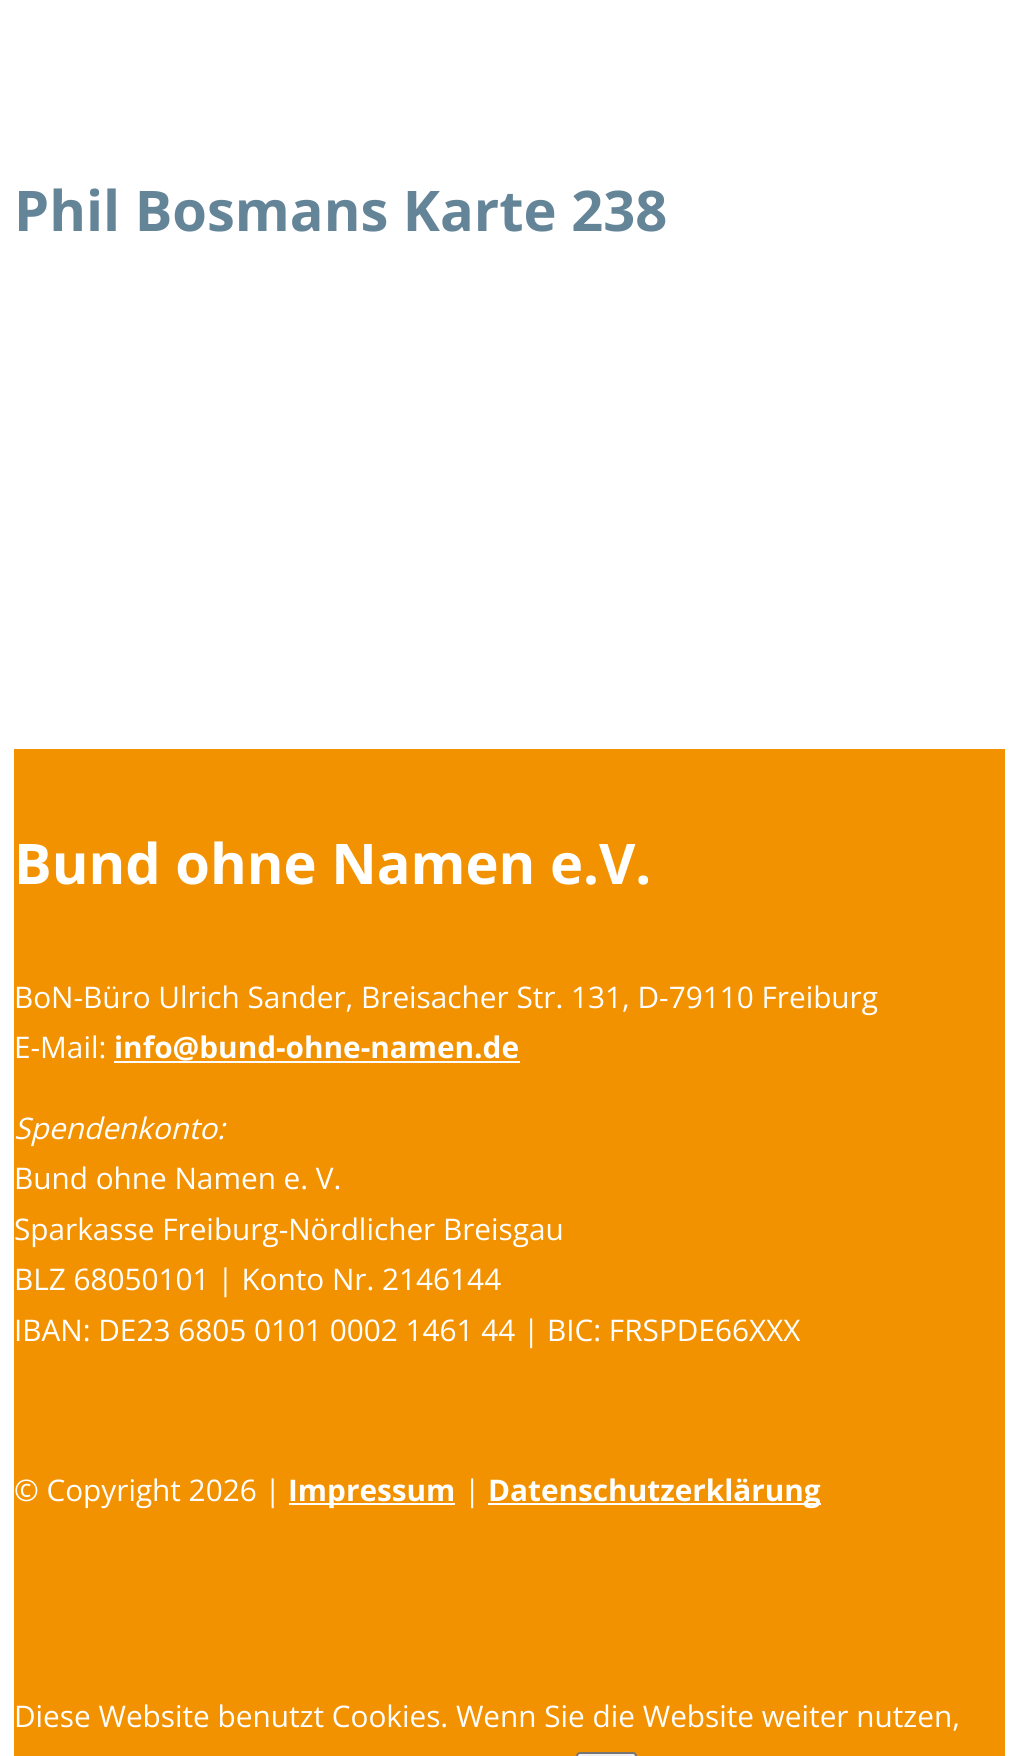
#include <cairo.h>
#include <math.h>
#include <stddef.h>


static void set_color(cairo_t *cr, unsigned color) {
    cairo_set_source_rgb(cr, (color >> 16) / 255.0, (color >> 8 & 255) / 255.0, (color & 255) / 255.0);
}

static void draw_text(cairo_t *cr, double x, double y, const char *s, const char *family, double size, int italic, int bold, unsigned color) {
    cairo_select_font_face(cr, family, italic ? CAIRO_FONT_SLANT_ITALIC : CAIRO_FONT_SLANT_NORMAL,
        bold ? CAIRO_FONT_WEIGHT_BOLD : CAIRO_FONT_WEIGHT_NORMAL);
    cairo_set_font_size(cr, size);
    set_color(cr, color);
    cairo_move_to(cr, x, y);
    cairo_show_text(cr, s);
}

static void fill_rect(cairo_t *cr, double x, double y, double w, double h, unsigned color) {
    set_color(cr, color);
    cairo_rectangle(cr, x, y, w, h);
    cairo_fill(cr);
}

static void rounded_rect(cairo_t *cr, double x, double y, double w, double h, double r) {
    cairo_new_sub_path(cr);
    cairo_arc(cr, x + w - r, y + h - r, r, 0, M_PI / 2);
    cairo_arc(cr, x + r, y + h - r, r, M_PI / 2, M_PI);
    cairo_arc(cr, x + r, y + r, r, M_PI, 1.5 * M_PI);
    cairo_arc(cr, x + w - r, y + r, r, 1.5 * M_PI, 2 * M_PI);
    cairo_close_path(cr);
}

int main(void) {
    cairo_surface_t *surface = cairo_image_surface_create(CAIRO_FORMAT_RGB24, 1018, 1756);
    cairo_t *cr = cairo_create(surface);
    cairo_font_options_t *options = cairo_font_options_create();
    cairo_font_options_set_hint_metrics(options, CAIRO_HINT_METRICS_OFF);
    cairo_font_options_set_hint_style(options, CAIRO_HINT_STYLE_NONE);
    cairo_set_font_options(cr, options);
    cairo_set_miter_limit(cr, 4);
    set_color(cr, 0xFFFFFF);
    cairo_paint(cr);
    draw_text(cr, 14, 231, "Phil Bosmans Karte 238", "Open Sans", 56, 0, 1, 0x648498);
    fill_rect(cr, 14, 749, 991, 1007, 0xF39200);
    draw_text(cr, 14, 884, "Bund ohne Namen e.V.", "Open Sans", 56, 0, 1, 0xFFFFFF);
    draw_text(cr, 14, 1008, "BoN-Büro Ulrich Sander, Breisacher Str. 131, D-79110 Freiburg", "Open Sans", 29.75, 0, 0, 0xFFFFFF);
    draw_text(cr, 14, 1058, "E-Mail:", "Open Sans", 29.75, 0, 0, 0xFFFFFF);
    draw_text(cr, 114, 1058, "info@bund-ohne-namen.de", "Open Sans", 29.75, 0, 1, 0xFFFFFF);
    fill_rect(cr, 114, 1061, 406, 2, 0xFFFFFF);
    draw_text(cr, 14, 1139, "Spendenkonto:", "Open Sans", 29.75, 1, 0, 0xFFFFFF);
    draw_text(cr, 14, 1189, "Bund ohne Namen e. V.", "Open Sans", 29.75, 0, 0, 0xFFFFFF);
    draw_text(cr, 14, 1240, "Sparkasse Freiburg-Nördlicher Breisgau", "Open Sans", 29.75, 0, 0, 0xFFFFFF);
    draw_text(cr, 14, 1290, "BLZ 68050101 | Konto Nr. 2146144", "Open Sans", 29.75, 0, 0, 0xFFFFFF);
    draw_text(cr, 14, 1341, "IBAN: DE23 6805 0101 0002 1461 44 | BIC: FRSPDE66XXX", "Open Sans", 29.75, 0, 0, 0xFFFFFF);
    draw_text(cr, 14, 1501, "© Copyright 2026 |", "Open Sans", 29.75, 0, 0, 0xFFFFFF);
    fill_rect(cr, 289, 1503, 166, 2, 0xFFFFFF);
    draw_text(cr, 288, 1501, "Impressum", "Open Sans", 29.75, 0, 1, 0xFFFFFF);
    draw_text(cr, 464, 1501, "|", "Open Sans", 29.75, 0, 0, 0xFFFFFF);
    fill_rect(cr, 488, 1503, 333, 2, 0xFFFFFF);
    draw_text(cr, 488, 1501, "Datenschutzerklärung", "Open Sans", 29.75, 0, 1, 0xFFFFFF);
    draw_text(cr, 14, 1727, "Diese Website benutzt Cookies. Wenn Sie die Website weiter nutzen,", "Open Sans", 29.75, 0, 0, 0xFFFFFF);
    set_color(cr, 0xEFEFEF);
    rounded_rect(cr, 577, 1753, 59, 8, 3);
    cairo_fill_preserve(cr);
    set_color(cr, 0x767676);
    cairo_stroke(cr);
    cairo_surface_write_to_png(surface, "output.png");
    cairo_font_options_destroy(options);
    cairo_destroy(cr);
    cairo_surface_destroy(surface);
    return 0;
}
